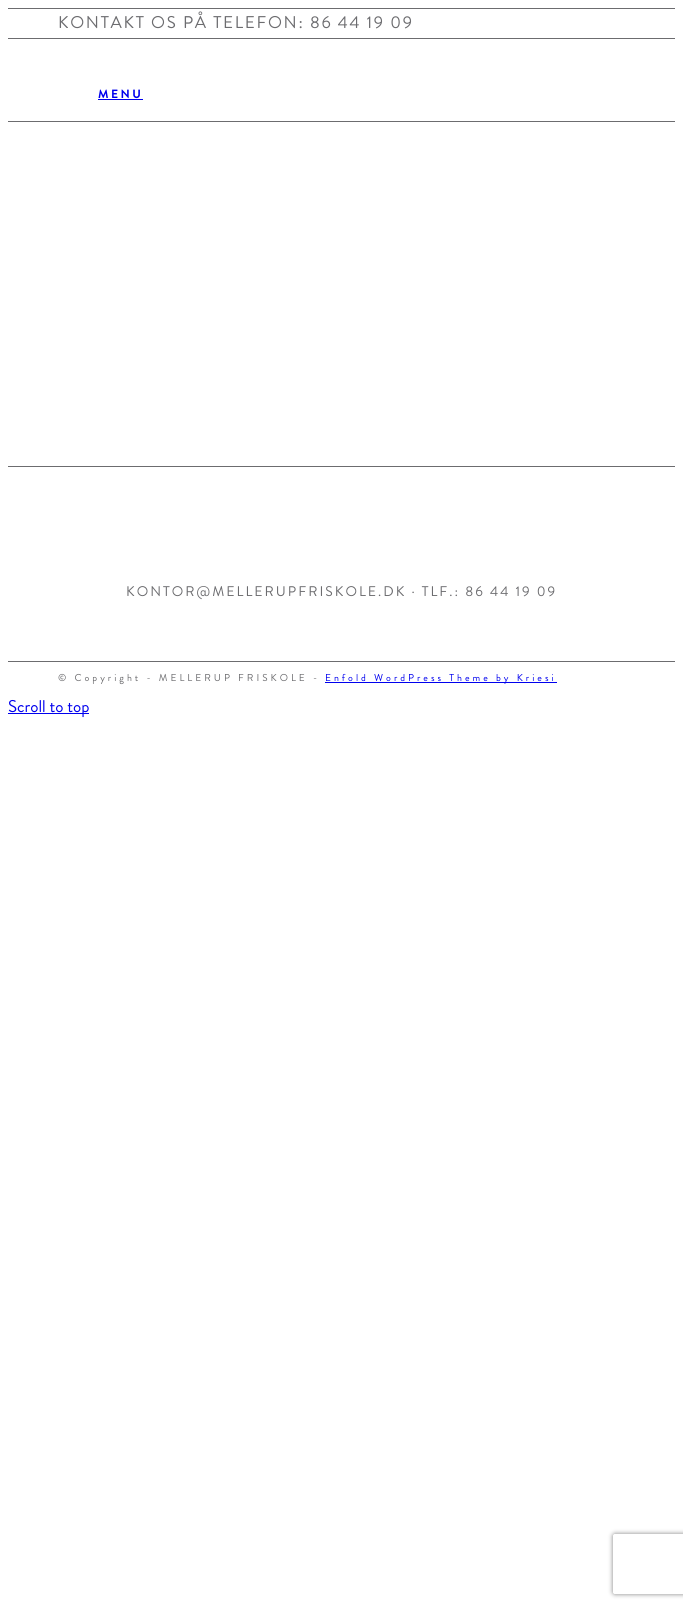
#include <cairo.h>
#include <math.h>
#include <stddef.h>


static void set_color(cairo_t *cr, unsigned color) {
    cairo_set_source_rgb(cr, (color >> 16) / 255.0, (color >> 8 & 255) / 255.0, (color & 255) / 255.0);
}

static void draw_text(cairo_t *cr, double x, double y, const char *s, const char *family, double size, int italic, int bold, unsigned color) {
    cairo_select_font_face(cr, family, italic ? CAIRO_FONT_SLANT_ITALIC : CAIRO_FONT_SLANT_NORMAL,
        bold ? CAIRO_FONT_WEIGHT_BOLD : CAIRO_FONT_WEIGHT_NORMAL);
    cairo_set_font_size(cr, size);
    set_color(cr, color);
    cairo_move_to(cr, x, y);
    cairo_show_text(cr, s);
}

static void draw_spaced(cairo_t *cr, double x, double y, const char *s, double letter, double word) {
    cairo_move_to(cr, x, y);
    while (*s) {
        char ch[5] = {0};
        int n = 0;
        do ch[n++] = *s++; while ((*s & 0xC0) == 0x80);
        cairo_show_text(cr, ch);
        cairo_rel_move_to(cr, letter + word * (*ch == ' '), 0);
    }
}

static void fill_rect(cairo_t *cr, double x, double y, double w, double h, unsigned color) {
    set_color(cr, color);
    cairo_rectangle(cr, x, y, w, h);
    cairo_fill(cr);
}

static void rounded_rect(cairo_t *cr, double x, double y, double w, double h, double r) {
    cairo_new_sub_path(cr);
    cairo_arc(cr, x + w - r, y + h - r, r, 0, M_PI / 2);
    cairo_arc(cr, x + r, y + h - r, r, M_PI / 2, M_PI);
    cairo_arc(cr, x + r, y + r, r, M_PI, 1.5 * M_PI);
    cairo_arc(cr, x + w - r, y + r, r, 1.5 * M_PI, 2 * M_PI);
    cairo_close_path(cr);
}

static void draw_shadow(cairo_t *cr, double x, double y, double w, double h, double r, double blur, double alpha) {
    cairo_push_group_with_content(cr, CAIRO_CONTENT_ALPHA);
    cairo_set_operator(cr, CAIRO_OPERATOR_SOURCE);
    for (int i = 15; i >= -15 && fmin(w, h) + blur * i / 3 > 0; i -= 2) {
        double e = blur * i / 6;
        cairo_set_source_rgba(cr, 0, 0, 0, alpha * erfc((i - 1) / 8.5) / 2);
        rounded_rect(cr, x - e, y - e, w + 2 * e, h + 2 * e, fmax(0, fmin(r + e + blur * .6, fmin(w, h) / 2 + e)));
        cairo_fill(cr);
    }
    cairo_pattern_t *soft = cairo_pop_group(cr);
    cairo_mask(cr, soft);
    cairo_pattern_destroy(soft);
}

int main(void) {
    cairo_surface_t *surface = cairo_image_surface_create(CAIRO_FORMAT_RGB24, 683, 1608);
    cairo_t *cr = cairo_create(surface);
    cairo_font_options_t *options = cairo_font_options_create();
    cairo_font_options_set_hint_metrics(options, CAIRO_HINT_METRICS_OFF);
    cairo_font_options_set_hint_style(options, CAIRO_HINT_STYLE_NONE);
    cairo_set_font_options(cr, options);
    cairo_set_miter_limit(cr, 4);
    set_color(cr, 0xFFFFFF);
    cairo_paint(cr);
    fill_rect(cr, 8, 8, 667, 1, 0x6C6C6F);
    cairo_select_font_face(cr, "Brandon Grotesque", CAIRO_FONT_SLANT_NORMAL, CAIRO_FONT_WEIGHT_NORMAL);
    cairo_set_font_size(cr, 17);
    draw_spaced(cr, 58, 28, "KONTAKT OS PÅ TELEFON: 86 44 19 09", 1.7, 0);
    fill_rect(cr, 8, 38, 667, 1, 0x6C6C6F);
    cairo_select_font_face(cr, "Brandon Grotesque", CAIRO_FONT_SLANT_NORMAL, CAIRO_FONT_WEIGHT_BOLD);
    cairo_set_font_size(cr, 12);
    set_color(cr, 0x0000EE);
    draw_spaced(cr, 98, 98, "MENU", 2.5, 0);
    fill_rect(cr, 98, 99, 45, 1, 0x0000EE);
    fill_rect(cr, 8, 121, 667, 1, 0x6C6C6F);
    fill_rect(cr, 8, 466, 667, 1, 0x6C6C6F);
    cairo_select_font_face(cr, "Brandon Grotesque", CAIRO_FONT_SLANT_NORMAL, CAIRO_FONT_WEIGHT_NORMAL);
    cairo_set_font_size(cr, 14);
    draw_spaced(cr, 126, 596, "KONTOR@MELLERUPFRISKOLE.DK · TLF.: 86 44 19 09", 2, 0);
    fill_rect(cr, 8, 661, 667, 1, 0x6C6C6F);
    cairo_set_font_size(cr, 10);
    draw_spaced(cr, 58, 681, "© Copyright - MELLERUP FRISKOLE -", 3, 0);
    fill_rect(cr, 325, 682, 232, 1, 0x0000EE);
    draw_spaced(cr, 325, 681, "Enfold WordPress Theme by Kriesi", 3, 0);
    fill_rect(cr, 8, 713, 81, 1, 0x0000EE);
    draw_text(cr, 8, 712, "Scroll to top", "Brandon Grotesque", 17, 0, 0, 0x0000EE);
    cairo_save(cr);
    cairo_set_fill_rule(cr, CAIRO_FILL_RULE_EVEN_ODD);
    cairo_new_path(cr);
    cairo_move_to(cr, 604, 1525);
    cairo_line_to(cr, 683, 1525);
    cairo_line_to(cr, 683, 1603);
    cairo_line_to(cr, 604, 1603);
    cairo_close_path(cr);
    cairo_move_to(cr, 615, 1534);
    cairo_line_to(cr, 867, 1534);
    cairo_curve_to(cr, 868, 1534, 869, 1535, 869, 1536);
    cairo_line_to(cr, 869, 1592);
    cairo_curve_to(cr, 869, 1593, 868, 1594, 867, 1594);
    cairo_line_to(cr, 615, 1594);
    cairo_curve_to(cr, 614, 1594, 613, 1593, 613, 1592);
    cairo_line_to(cr, 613, 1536);
    cairo_curve_to(cr, 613, 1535, 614, 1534, 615, 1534);
    cairo_close_path(cr);
    cairo_clip(cr);
    set_color(cr, 0x808080);
    draw_shadow(cr, 613, 1534, 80, 60, 2, 2.5, 1);
    cairo_restore(cr);
    cairo_surface_write_to_png(surface, "output.png");
    cairo_font_options_destroy(options);
    cairo_destroy(cr);
    cairo_surface_destroy(surface);
    return 0;
}
